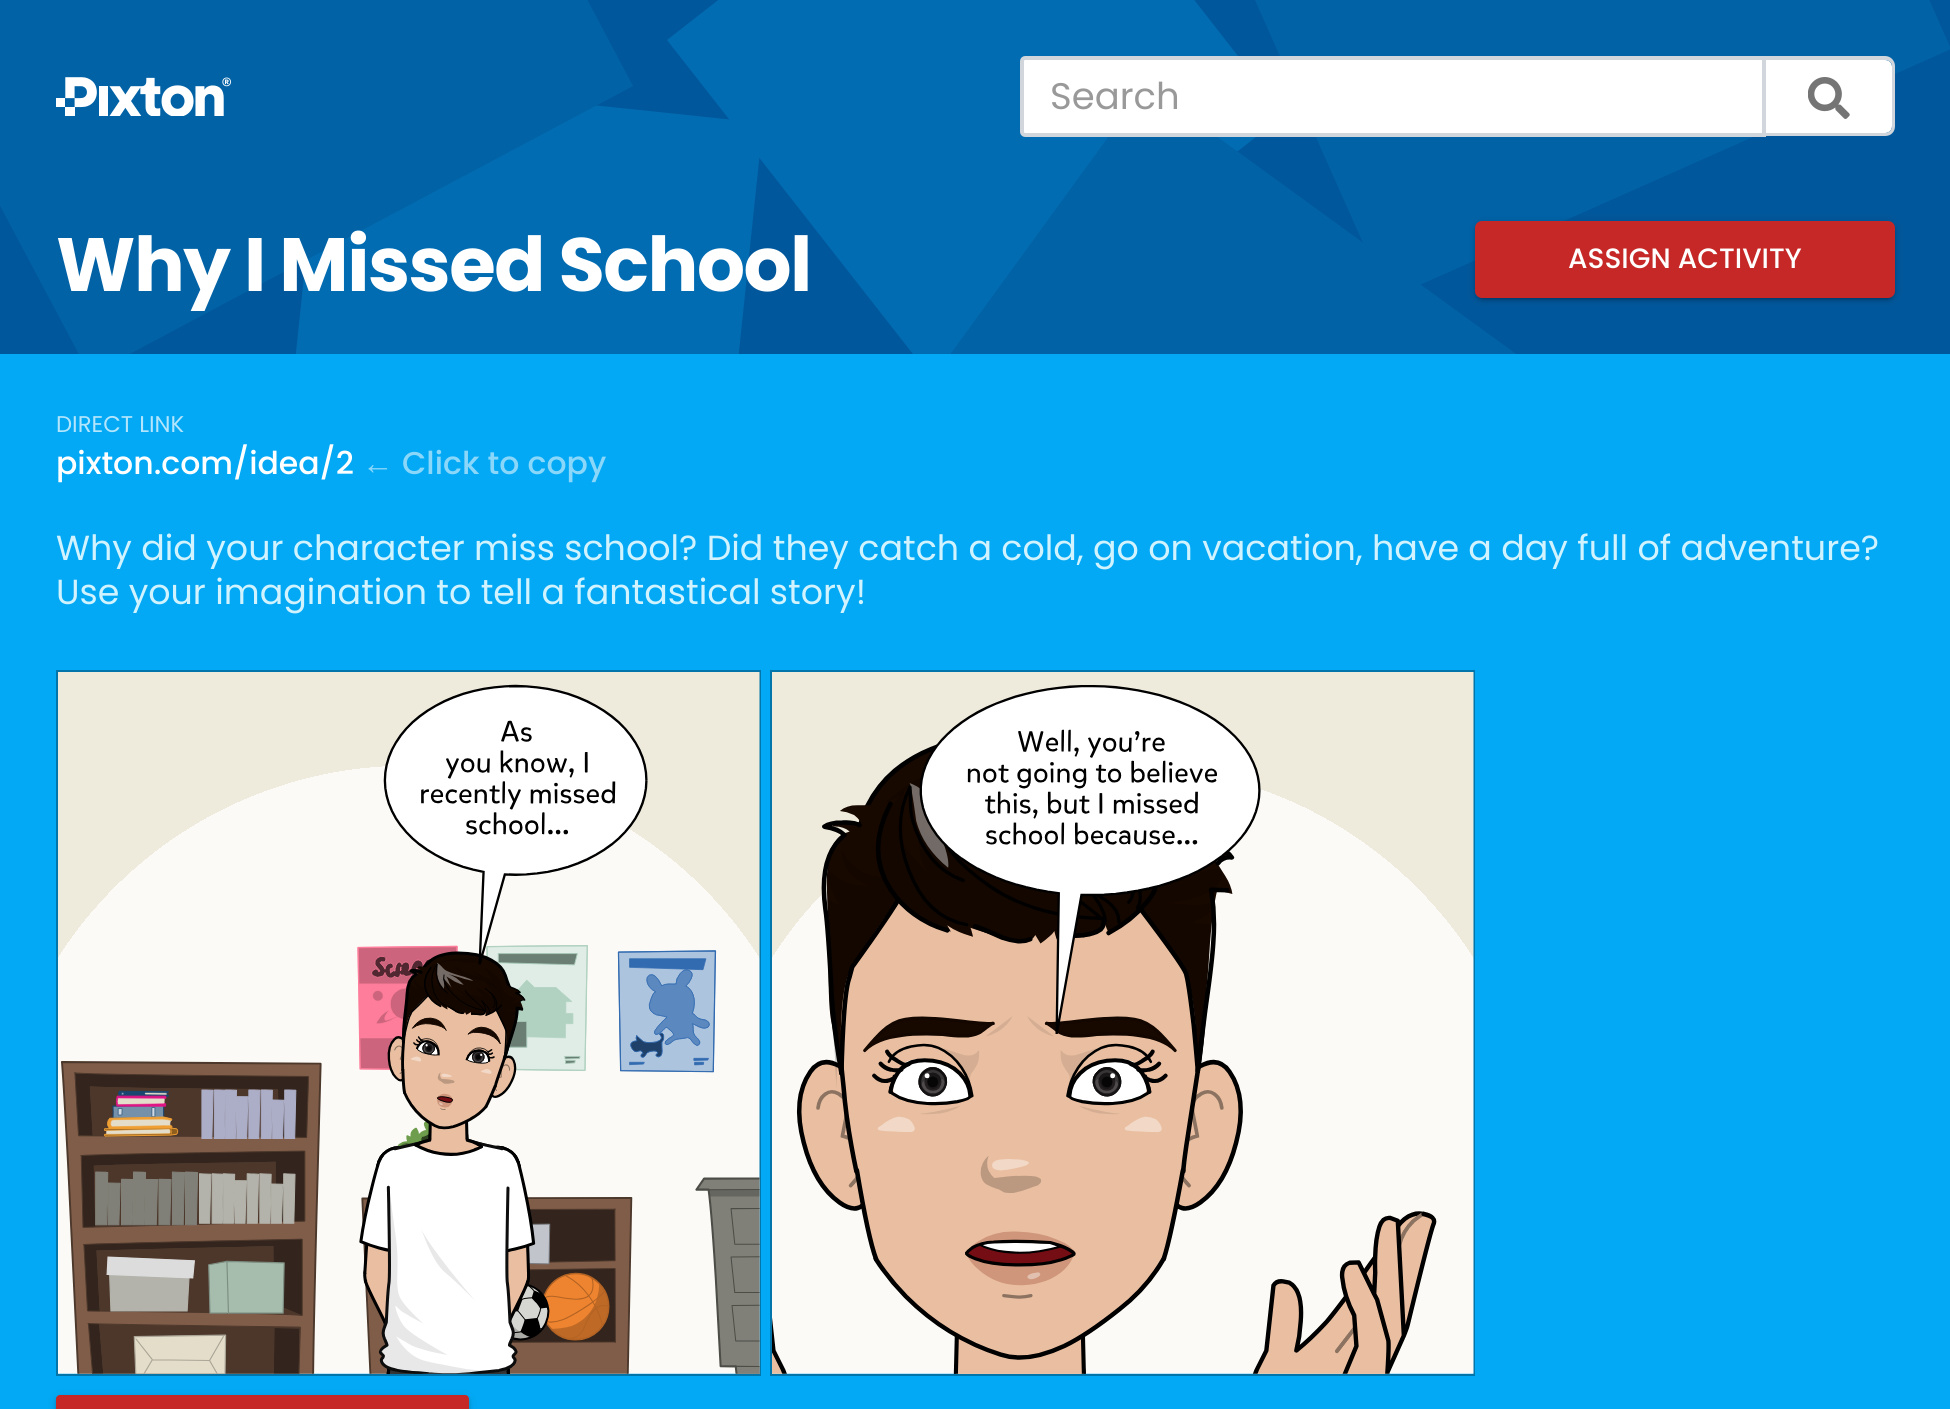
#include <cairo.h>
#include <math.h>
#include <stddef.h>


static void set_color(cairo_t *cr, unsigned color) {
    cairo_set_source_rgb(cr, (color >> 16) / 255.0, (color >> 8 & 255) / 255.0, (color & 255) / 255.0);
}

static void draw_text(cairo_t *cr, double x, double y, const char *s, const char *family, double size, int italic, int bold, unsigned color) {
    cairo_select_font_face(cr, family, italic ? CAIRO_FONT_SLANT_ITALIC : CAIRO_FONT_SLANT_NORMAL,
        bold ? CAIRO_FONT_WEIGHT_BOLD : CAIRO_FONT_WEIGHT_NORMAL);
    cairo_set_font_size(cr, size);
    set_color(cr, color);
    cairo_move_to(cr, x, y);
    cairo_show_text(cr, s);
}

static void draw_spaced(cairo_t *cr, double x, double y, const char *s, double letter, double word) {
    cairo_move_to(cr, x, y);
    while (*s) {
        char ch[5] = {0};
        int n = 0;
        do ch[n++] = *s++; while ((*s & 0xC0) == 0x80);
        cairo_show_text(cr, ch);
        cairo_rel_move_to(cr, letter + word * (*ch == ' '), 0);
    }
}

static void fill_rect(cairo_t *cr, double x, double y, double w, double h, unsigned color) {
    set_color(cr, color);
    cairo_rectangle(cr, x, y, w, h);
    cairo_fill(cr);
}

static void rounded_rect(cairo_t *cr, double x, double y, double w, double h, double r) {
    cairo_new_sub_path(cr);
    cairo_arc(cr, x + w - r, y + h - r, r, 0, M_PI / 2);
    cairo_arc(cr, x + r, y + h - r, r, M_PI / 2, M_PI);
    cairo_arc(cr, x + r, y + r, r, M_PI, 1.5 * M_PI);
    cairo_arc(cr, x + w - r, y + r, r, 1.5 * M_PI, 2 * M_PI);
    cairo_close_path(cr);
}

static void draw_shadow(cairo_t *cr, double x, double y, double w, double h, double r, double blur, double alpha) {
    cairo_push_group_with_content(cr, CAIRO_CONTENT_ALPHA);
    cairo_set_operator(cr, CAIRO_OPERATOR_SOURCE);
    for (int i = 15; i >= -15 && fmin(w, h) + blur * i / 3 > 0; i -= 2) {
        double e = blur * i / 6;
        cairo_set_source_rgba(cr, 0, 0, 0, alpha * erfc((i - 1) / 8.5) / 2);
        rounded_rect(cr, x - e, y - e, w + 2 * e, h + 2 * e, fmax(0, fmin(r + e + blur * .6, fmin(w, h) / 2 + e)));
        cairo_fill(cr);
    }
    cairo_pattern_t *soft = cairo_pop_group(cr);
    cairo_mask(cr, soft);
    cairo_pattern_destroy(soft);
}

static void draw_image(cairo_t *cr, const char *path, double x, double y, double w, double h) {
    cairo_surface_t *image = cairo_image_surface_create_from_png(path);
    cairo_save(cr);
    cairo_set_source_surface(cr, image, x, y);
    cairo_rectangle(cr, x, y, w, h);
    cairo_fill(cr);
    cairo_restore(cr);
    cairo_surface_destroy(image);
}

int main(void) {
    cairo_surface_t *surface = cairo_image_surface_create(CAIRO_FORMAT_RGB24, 1950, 1409);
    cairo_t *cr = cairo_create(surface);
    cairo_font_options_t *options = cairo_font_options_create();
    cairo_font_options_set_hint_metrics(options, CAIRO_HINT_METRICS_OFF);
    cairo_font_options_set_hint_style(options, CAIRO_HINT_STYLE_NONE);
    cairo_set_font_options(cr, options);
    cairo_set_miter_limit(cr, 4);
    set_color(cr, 0x03A9F4);
    cairo_paint(cr);
    fill_rect(cr, 0, 0, 1950, 354, 0x01579B);
    cairo_save(cr);
    cairo_rectangle(cr, 0, 0, 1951, 354);
    cairo_clip(cr);
    set_color(cr, 0x026CB2);
    cairo_new_path(cr);
    cairo_move_to(cr, 1284, 115);
    cairo_line_to(cr, 938, 386);
    cairo_line_to(cr, 667, 40);
    cairo_line_to(cr, 1014, -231);
    cairo_close_path(cr);
    cairo_fill(cr);
    set_color(cr, 0x0162A6);
    cairo_new_path(cr);
    cairo_move_to(cr, 1282, 945);
    cairo_line_to(cr, 784, 583);
    cairo_line_to(cr, 1146, 85);
    cairo_line_to(cr, 1644, 447);
    cairo_close_path(cr);
    cairo_fill(cr);
    set_color(cr, 0x026CB2);
    cairo_new_path(cr);
    cairo_move_to(cr, 717, 561);
    cairo_line_to(cr, 279, 514);
    cairo_line_to(cr, 325, 77);
    cairo_line_to(cr, 763, 123);
    cairo_close_path(cr);
    cairo_fill(cr);
    cairo_restore(cr);
    set_color(cr, 0x0162A6);
    cairo_new_path(cr);
    cairo_move_to(cr, 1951, 49);
    cairo_line_to(cr, 1388, 299);
    cairo_line_to(cr, 1138, -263);
    cairo_line_to(cr, 1701, -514);
    cairo_close_path(cr);
    cairo_fill(cr);
    cairo_save(cr);
    cairo_rectangle(cr, 0, 0, 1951, 354);
    cairo_clip(cr);
    cairo_new_path(cr);
    cairo_move_to(cr, -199, -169);
    cairo_line_to(cr, 345, -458);
    cairo_line_to(cr, 633, 86);
    cairo_line_to(cr, 90, 375);
    cairo_close_path(cr);
    cairo_fill(cr);
    cairo_restore(cr);
    draw_image(cr, "assets/img1.png", 56, 77, 175, 39);
    set_color(cr, 0xFFFFFF);
    cairo_new_path(cr);
    cairo_move_to(cr, 1025, 58);
    cairo_line_to(cr, 1764, 58);
    cairo_line_to(cr, 1764, 135);
    cairo_line_to(cr, 1025, 135);
    cairo_curve_to(cr, 1023.5, 135, 1022, 133.5, 1022, 132);
    cairo_line_to(cr, 1022, 61);
    cairo_curve_to(cr, 1022, 59.5, 1023.5, 58, 1025, 58);
    cairo_close_path(cr);
    cairo_fill_preserve(cr);
    set_color(cr, 0xD1D6DC);
    cairo_set_line_width(cr, 4);
    cairo_stroke(cr);
    draw_text(cr, 1050, 109, "Search", "Poppins", 37, 0, 0, 0x999999);
    set_color(cr, 0xFFFFFF);
    cairo_new_path(cr);
    cairo_move_to(cr, 1766, 60);
    cairo_line_to(cr, 1885, 60);
    cairo_curve_to(cr, 1889, 60, 1892, 63, 1892, 67);
    cairo_line_to(cr, 1892, 126);
    cairo_curve_to(cr, 1892, 130, 1889, 133, 1885, 133);
    cairo_line_to(cr, 1766, 133);
    cairo_close_path(cr);
    cairo_fill(cr);
    set_color(cr, 0xD1D6DC);
    cairo_set_fill_rule(cr, CAIRO_FILL_RULE_EVEN_ODD);
    cairo_new_path(cr);
    cairo_move_to(cr, 1766, 56);
    cairo_line_to(cr, 1885, 56);
    cairo_curve_to(cr, 1891, 56, 1895, 61, 1895, 66);
    cairo_line_to(cr, 1895, 126);
    cairo_curve_to(cr, 1895, 132, 1891, 136, 1885, 136);
    cairo_line_to(cr, 1766, 136);
    cairo_close_path(cr);
    cairo_move_to(cr, 1766, 60);
    cairo_line_to(cr, 1885, 60);
    cairo_curve_to(cr, 1889, 60, 1892, 63, 1892, 66);
    cairo_line_to(cr, 1892, 126);
    cairo_curve_to(cr, 1892, 130, 1889, 133, 1885, 133);
    cairo_line_to(cr, 1766, 133);
    cairo_close_path(cr);
    cairo_fill(cr);
    draw_image(cr, "assets/img2.png", 1808, 77, 42, 42);
    cairo_select_font_face(cr, "Poppins", CAIRO_FONT_SLANT_NORMAL, CAIRO_FONT_WEIGHT_BOLD);
    cairo_set_font_size(cr, 75.5);
    set_color(cr, 0xFFFFFF);
    draw_spaced(cr, 56, 291, "Why I Missed School", -1.5, 0);
    set_color(cr, 0x000000);
    draw_shadow(cr, 1475, 222, 420, 77, 7, 4.5, 0.12);
    draw_shadow(cr, 1479, 229, 413, 70, 4, 1, 0.2);
    draw_shadow(cr, 1475, 224, 420, 77, 7, 2, 0.14);
    set_color(cr, 0xC62828);
    rounded_rect(cr, 1475, 221, 420, 77, 7);
    cairo_fill(cr);
    draw_text(cr, 1568, 268, "ASSIGN ACTIVITY", "Poppins Medium", 28, 0, 0, 0xFFFFFF);
    draw_text(cr, 56, 432, "DIRECT LINK", "Poppins", 22.75, 0, 0, 0xB3E5FC);
    draw_text(cr, 56, 474, "pixton.com/idea/2", "Poppins Medium", 31.5, 0, 0, 0xFFFFFF);
    draw_text(cr, 362, 474, "←", "Liberation Sans", 31.5, 0, 0, 0x8BD7FA);
    draw_text(cr, 402, 474, "Click to copy", "Poppins Medium", 31.5, 0, 0, 0x8BD7FA);
    draw_text(cr, 56, 560, "Why did your character miss school? Did they catch a cold, go on vacation, have a day full of adventure?", "Poppins", 34.85, 0, 0, 0xD1F3FF);
    draw_text(cr, 56, 604, "Use your imagination to tell a fantastical story!", "Poppins", 34.85, 0, 0, 0xD1F3FF);
    cairo_rectangle(cr, 57, 671, 703, 704);
    set_color(cr, 0x0276AB);
    cairo_set_line_width(cr, 2);
    cairo_stroke(cr);
    draw_image(cr, "assets/img3.png", 58, 672, 702, 702);
    cairo_rectangle(cr, 771, 671, 703, 704);
    cairo_stroke(cr);
    draw_image(cr, "assets/img4.png", 772, 672, 702, 702);
    set_color(cr, 0x000000);
    draw_shadow(cr, 56, 1397, 413, 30, 4, 4.5, 0.12);
    draw_shadow(cr, 56, 1398, 413, 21, 4, 2, 0.14);
    set_color(cr, 0xC62828);
    rounded_rect(cr, 56, 1395, 413, 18, 4);
    cairo_fill(cr);
    cairo_surface_write_to_png(surface, "output.png");
    cairo_font_options_destroy(options);
    cairo_destroy(cr);
    cairo_surface_destroy(surface);
    return 0;
}
